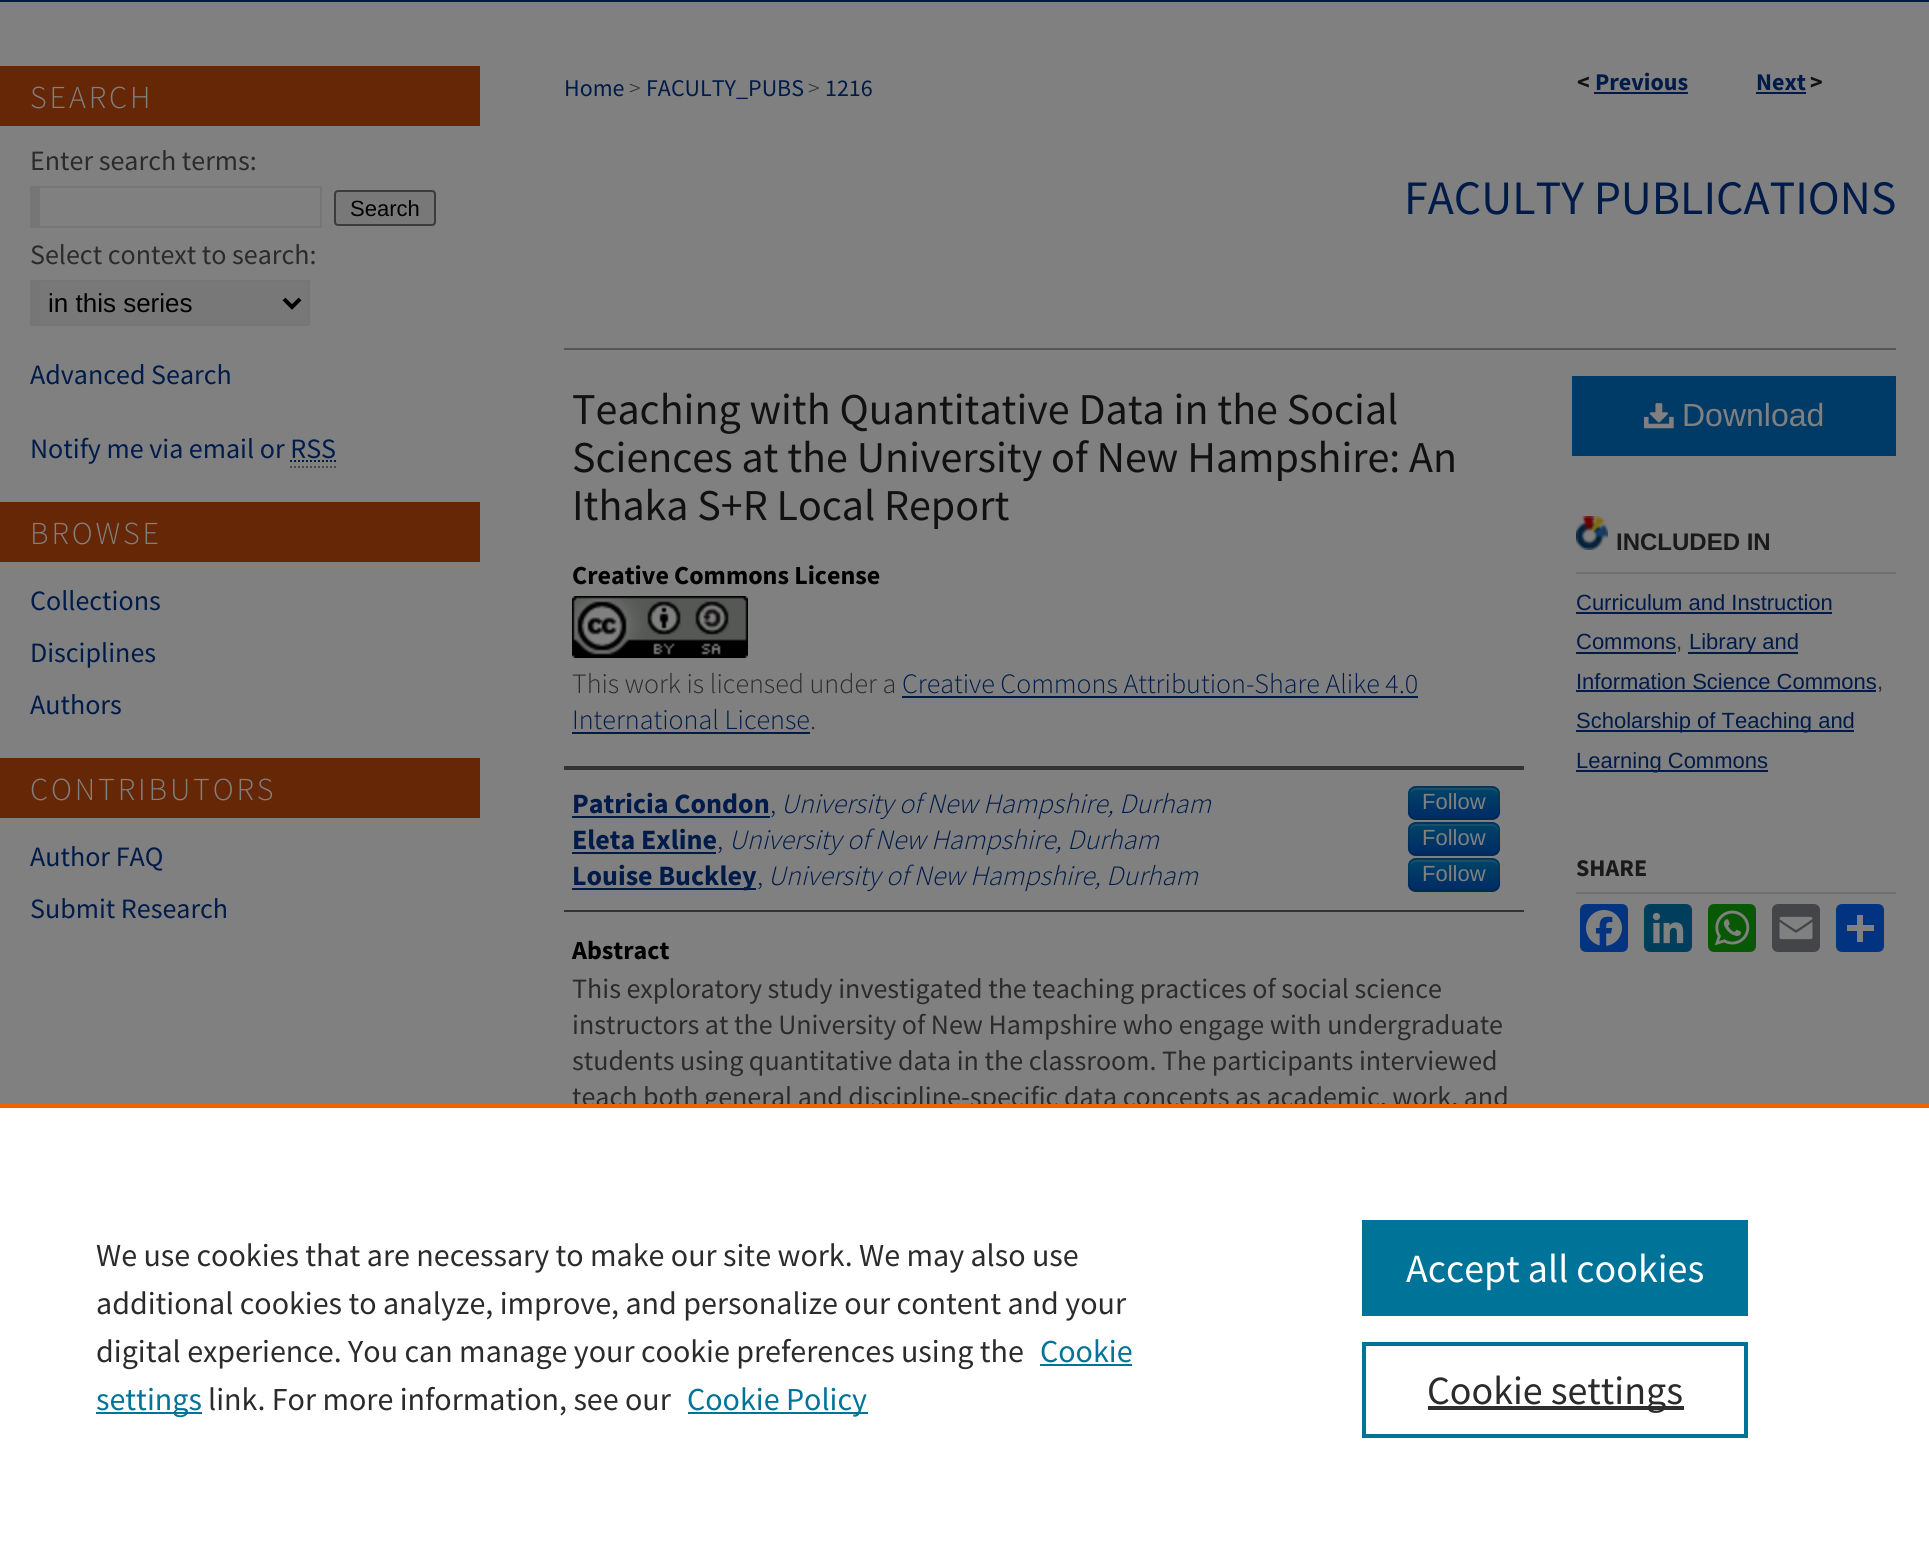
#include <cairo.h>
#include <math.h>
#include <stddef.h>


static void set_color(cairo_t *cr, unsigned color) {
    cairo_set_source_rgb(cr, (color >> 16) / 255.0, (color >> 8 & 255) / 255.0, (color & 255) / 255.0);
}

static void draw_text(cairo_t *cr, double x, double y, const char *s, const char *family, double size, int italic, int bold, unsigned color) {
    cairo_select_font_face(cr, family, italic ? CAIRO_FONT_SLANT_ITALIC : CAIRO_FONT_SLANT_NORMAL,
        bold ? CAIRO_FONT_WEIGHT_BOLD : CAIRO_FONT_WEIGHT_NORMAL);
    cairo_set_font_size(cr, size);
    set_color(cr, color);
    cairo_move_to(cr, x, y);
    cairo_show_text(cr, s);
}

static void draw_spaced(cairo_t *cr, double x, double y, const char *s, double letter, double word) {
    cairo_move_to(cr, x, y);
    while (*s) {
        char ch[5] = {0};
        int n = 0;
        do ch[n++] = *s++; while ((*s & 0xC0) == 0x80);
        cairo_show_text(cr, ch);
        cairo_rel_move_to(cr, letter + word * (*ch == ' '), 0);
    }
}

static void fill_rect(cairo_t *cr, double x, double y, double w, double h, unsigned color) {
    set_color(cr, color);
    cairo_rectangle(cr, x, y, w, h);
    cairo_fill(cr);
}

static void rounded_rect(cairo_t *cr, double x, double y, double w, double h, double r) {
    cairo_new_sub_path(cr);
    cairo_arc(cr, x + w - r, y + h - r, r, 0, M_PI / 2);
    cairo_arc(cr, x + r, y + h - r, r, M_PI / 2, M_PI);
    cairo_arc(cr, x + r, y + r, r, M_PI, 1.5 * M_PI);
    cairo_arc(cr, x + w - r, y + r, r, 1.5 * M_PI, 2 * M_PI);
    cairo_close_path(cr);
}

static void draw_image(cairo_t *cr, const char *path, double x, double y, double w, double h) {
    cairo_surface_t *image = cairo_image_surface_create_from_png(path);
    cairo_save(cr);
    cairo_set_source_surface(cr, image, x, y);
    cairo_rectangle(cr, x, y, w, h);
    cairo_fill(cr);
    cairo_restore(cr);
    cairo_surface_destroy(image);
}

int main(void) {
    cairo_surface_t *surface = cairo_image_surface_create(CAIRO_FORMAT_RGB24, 1929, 1543);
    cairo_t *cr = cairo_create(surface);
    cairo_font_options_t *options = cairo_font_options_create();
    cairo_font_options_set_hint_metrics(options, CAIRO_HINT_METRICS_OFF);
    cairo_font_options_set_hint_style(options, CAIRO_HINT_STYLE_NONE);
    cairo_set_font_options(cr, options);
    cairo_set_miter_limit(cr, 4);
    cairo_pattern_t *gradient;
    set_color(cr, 0x808080);
    cairo_paint(cr);
    fill_rect(cr, 0, 0, 1929, 2, 0x001B49);
    fill_rect(cr, 0, 66, 480, 60, 0x662706);
    cairo_select_font_face(cr, "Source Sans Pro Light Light", CAIRO_FONT_SLANT_NORMAL, CAIRO_FONT_WEIGHT_NORMAL);
    cairo_set_font_size(cr, 32);
    set_color(cr, 0x808080);
    draw_spaced(cr, 30, 108, "SEARCH", 2.9, 0);
    draw_text(cr, 30, 170, "Enter search terms:", "Source Sans Pro", 28, 0, 0, 0x2B2B2B);
    fill_rect(cr, 40, 186, 282, 2, 0x767676);
    fill_rect(cr, 320, 186, 2, 42, 0x767676);
    fill_rect(cr, 40, 226, 282, 2, 0x767676);
    fill_rect(cr, 30, 186, 10, 42, 0x767676);
    set_color(cr, 0x787878);
    rounded_rect(cr, 335, 191, 100, 34, 3);
    cairo_fill_preserve(cr);
    set_color(cr, 0x3B3B3B);
    cairo_stroke(cr);
    draw_text(cr, 350, 216, "Search", "Liberation Sans", 22, 0, 0, 0x000000);
    draw_text(cr, 30, 264, "Select context to search:", "Source Sans Pro", 28, 0, 0, 0x2B2B2B);
    fill_rect(cr, 40, 282, 268, 42, 0x787878);
    fill_rect(cr, 40, 280, 270, 2, 0x767676);
    fill_rect(cr, 308, 280, 2, 46, 0x767676);
    fill_rect(cr, 40, 324, 270, 2, 0x767676);
    fill_rect(cr, 30, 280, 10, 46, 0x767676);
    cairo_new_path(cr);
    cairo_move_to(cr, 284, 299);
    cairo_line_to(cr, 292, 307);
    cairo_line_to(cr, 300, 299);
    set_color(cr, 0x000000);
    cairo_set_line_width(cr, 4);
    cairo_stroke(cr);
    draw_text(cr, 48, 312, "in this series", "Liberation Sans", 26, 0, 0, 0x000000);
    draw_text(cr, 30, 384, "Advanced Search", "Source Sans Pro", 28, 0, 0, 0x001B49);
    draw_text(cr, 30, 458, "Notify me via email or RSS", "Source Sans Pro", 28, 0, 0, 0x001B49);
    cairo_new_path(cr);
    cairo_move_to(cr, 290, 461);
    cairo_line_to(cr, 336, 461);
    cairo_set_line_width(cr, 2);
    cairo_set_dash(cr, (double[]){2, 2}, 2, 0);
    cairo_stroke(cr);
    cairo_new_path(cr);
    cairo_move_to(cr, 290, 467);
    cairo_line_to(cr, 336, 467);
    set_color(cr, 0x4D4D4D);
    cairo_stroke(cr);
    fill_rect(cr, 0, 502, 480, 60, 0x662706);
    cairo_select_font_face(cr, "Source Sans Pro Light Light", CAIRO_FONT_SLANT_NORMAL, CAIRO_FONT_WEIGHT_NORMAL);
    cairo_set_font_size(cr, 32);
    set_color(cr, 0x808080);
    draw_spaced(cr, 30, 544, "BROWSE", 2.9, 0);
    draw_text(cr, 30, 610, "Collections", "Source Sans Pro", 28, 0, 0, 0x001B49);
    draw_text(cr, 30, 662, "Disciplines", "Source Sans Pro", 28, 0, 0, 0x001B49);
    draw_text(cr, 30, 714, "Authors", "Source Sans Pro", 28, 0, 0, 0x001B49);
    fill_rect(cr, 0, 758, 480, 60, 0x662706);
    cairo_select_font_face(cr, "Source Sans Pro Light Light", CAIRO_FONT_SLANT_NORMAL, CAIRO_FONT_WEIGHT_NORMAL);
    cairo_set_font_size(cr, 32);
    set_color(cr, 0x808080);
    draw_spaced(cr, 30, 800, "CONTRIBUTORS", 2.9, 0);
    draw_text(cr, 30, 866, "Author FAQ", "Source Sans Pro", 28, 0, 0, 0x001B49);
    draw_text(cr, 30, 918, "Submit Research", "Source Sans Pro", 28, 0, 0, 0x001B49);
    draw_text(cr, 564, 96, "Home", "Source Sans Pro", 24, 0, 0, 0x001B49);
    draw_text(cr, 629, 96, ">", "Source Sans Pro Light Light", 24, 0, 0, 0x2B2B2B);
    draw_text(cr, 646, 96, "FACULTY_PUBS", "Source Sans Pro", 24, 0, 0, 0x001B49);
    draw_text(cr, 808, 96, ">", "Source Sans Pro Light Light", 24, 0, 0, 0x2B2B2B);
    draw_text(cr, 825, 96, "1216", "Source Sans Pro", 24, 0, 0, 0x001B49);
    draw_text(cr, 1577, 90, "<", "Source Sans Pro", 24, 0, 1, 0x111111);
    draw_text(cr, 1595, 90, "Previous", "Source Sans Pro", 24, 0, 1, 0x001B49);
    fill_rect(cr, 1594, 92, 94, 2, 0x001B49);
    draw_text(cr, 1756, 90, "Next", "Source Sans Pro", 24, 0, 1, 0x001B49);
    fill_rect(cr, 1756, 92, 50, 2, 0x001B49);
    draw_text(cr, 1810, 90, ">", "Source Sans Pro", 24, 0, 1, 0x111111);
    draw_text(cr, 1404, 214, "FACULTY PUBLICATIONS", "Source Sans Pro", 48, 0, 0, 0x001B49);
    fill_rect(cr, 564, 348, 1332, 2, 0x555555);
    draw_text(cr, 572, 424, "Teaching with Quantitative Data in the Social", "Source Sans Pro", 44, 0, 0, 0x111111);
    draw_text(cr, 572, 472, "Sciences at the University of New Hampshire: An", "Source Sans Pro", 44, 0, 0, 0x111111);
    draw_text(cr, 572, 520, "Ithaka S+R Local Report", "Source Sans Pro", 44, 0, 0, 0x111111);
    draw_text(cr, 572, 584, "Creative Commons License", "Source Sans Pro", 26, 0, 1, 0x000000);
    draw_image(cr, "assets/img1.png", 572, 596, 176, 62);
    draw_text(cr, 572, 693, "This work is licensed under a", "Source Sans Pro Light Light", 28, 0, 0, 0x2B2B2B);
    draw_text(cr, 902, 693, "Creative Commons Attribution-Share Alike 4.0", "Source Sans Pro Light Light", 28, 0, 0, 0x001B49);
    fill_rect(cr, 902, 696, 516, 2, 0x001B49);
    draw_text(cr, 572, 729, "International License", "Source Sans Pro Light Light", 28, 0, 0, 0x001B49);
    fill_rect(cr, 572, 732, 238, 2, 0x001B49);
    draw_text(cr, 810, 729, ".", "Source Sans Pro Light Light", 28, 0, 0, 0x2B2B2B);
    fill_rect(cr, 564, 766, 960, 4, 0x333333);
    fill_rect(cr, 564, 910, 960, 2, 0x333333);
    draw_text(cr, 572, 813, "Patricia Condon", "Source Sans Pro", 28, 0, 1, 0x001B49);
    fill_rect(cr, 572, 816, 198, 2, 0x001B49);
    draw_text(cr, 770, 813, ",", "Source Sans Pro Light Light", 28, 0, 0, 0x001B49);
    draw_text(cr, 781, 813, "University of New Hampshire, Durham", "Source Sans Pro Light Light", 28, 1, 0, 0x001B49);
    set_color(cr, 0x003A66);
    rounded_rect(cr, 1408, 786, 92, 34, 8);
    cairo_fill(cr);
    cairo_save(cr);
    rounded_rect(cr, 1408, 786, 92, 34, 8);
    cairo_clip(cr);
    gradient = cairo_pattern_create_linear(1454, 788, 1454, 818);
    cairo_pattern_add_color_stop_rgba(gradient, 0, 0, 0.267, 0.4, 1);
    cairo_pattern_add_color_stop_rgba(gradient, 1, 0, 0.169, 0.4, 1);
    cairo_set_source(cr, gradient);
    cairo_pattern_destroy(gradient);
    cairo_rectangle(cr, 1408, 788, 92, 30);
    cairo_fill(cr);
    cairo_restore(cr);
    cairo_set_source_rgba(cr, 0.502, 0.502, 0.502, 0.2);
    cairo_new_path(cr);
    cairo_move_to(cr, 1416, 790);
    cairo_line_to(cr, 1492, 790);
    cairo_curve_to(cr, 1495, 790, 1498, 793, 1498, 796);
    cairo_curve_to(cr, 1498, 785, 1488, 788, 1479, 788);
    cairo_line_to(cr, 1429, 788);
    cairo_curve_to(cr, 1420, 788, 1410, 785, 1410, 796);
    cairo_curve_to(cr, 1410, 793, 1413, 790, 1416, 790);
    cairo_close_path(cr);
    cairo_fill(cr);
    cairo_new_path(cr);
    cairo_move_to(cr, 1497, 817);
    cairo_curve_to(cr, 1495.5, 818.5, 1494, 819, 1492, 819);
    cairo_line_to(cr, 1416, 819);
    cairo_curve_to(cr, 1414, 819, 1412.5, 818.5, 1411, 817);
    cairo_set_source_rgba(cr, 0, 0, 0, 0.25);
    cairo_set_dash(cr, NULL, 0, 0);
    cairo_stroke(cr);
    cairo_new_path(cr);
    cairo_move_to(cr, 1411, 817);
    cairo_curve_to(cr, 1407.5, 813.5, 1409, 807.5, 1409, 803);
    cairo_curve_to(cr, 1409, 785, 1410, 787, 1428.5, 787);
    cairo_line_to(cr, 1479.5, 787);
    cairo_curve_to(cr, 1498, 787, 1499, 785, 1499, 803);
    cairo_curve_to(cr, 1499, 807.5, 1500.5, 813.5, 1497, 817);
    cairo_set_source_rgba(cr, 0, 0, 0, 0.1);
    cairo_stroke(cr);
    draw_text(cr, 1422, 809, "Follow", "Liberation Sans", 22, 0, 0, 0x808080);
    draw_text(cr, 572, 849, "Eleta Exline", "Source Sans Pro", 28, 0, 1, 0x001B49);
    fill_rect(cr, 572, 852, 144, 2, 0x001B49);
    draw_text(cr, 717, 849, ",", "Source Sans Pro Light Light", 28, 0, 0, 0x001B49);
    draw_text(cr, 729, 849, "University of New Hampshire, Durham", "Source Sans Pro Light Light", 28, 1, 0, 0x001B49);
    set_color(cr, 0x003A66);
    rounded_rect(cr, 1408, 822, 92, 34, 8);
    cairo_fill(cr);
    cairo_save(cr);
    rounded_rect(cr, 1408, 822, 92, 34, 8);
    cairo_clip(cr);
    gradient = cairo_pattern_create_linear(1454, 824, 1454, 854);
    cairo_pattern_add_color_stop_rgba(gradient, 0, 0, 0.267, 0.4, 1);
    cairo_pattern_add_color_stop_rgba(gradient, 1, 0, 0.169, 0.4, 1);
    cairo_set_source(cr, gradient);
    cairo_pattern_destroy(gradient);
    cairo_rectangle(cr, 1408, 824, 92, 30);
    cairo_fill(cr);
    cairo_restore(cr);
    cairo_set_source_rgba(cr, 0.502, 0.502, 0.502, 0.2);
    cairo_new_path(cr);
    cairo_move_to(cr, 1416, 826);
    cairo_line_to(cr, 1492, 826);
    cairo_curve_to(cr, 1495, 826, 1498, 829, 1498, 832);
    cairo_curve_to(cr, 1498, 821, 1488, 824, 1479, 824);
    cairo_line_to(cr, 1429, 824);
    cairo_curve_to(cr, 1420, 824, 1410, 821, 1410, 832);
    cairo_curve_to(cr, 1410, 829, 1413, 826, 1416, 826);
    cairo_close_path(cr);
    cairo_fill(cr);
    cairo_new_path(cr);
    cairo_move_to(cr, 1497, 853);
    cairo_curve_to(cr, 1495.5, 854.5, 1494, 855, 1492, 855);
    cairo_line_to(cr, 1416, 855);
    cairo_curve_to(cr, 1414, 855, 1412.5, 854.5, 1411, 853);
    cairo_set_source_rgba(cr, 0, 0, 0, 0.25);
    cairo_stroke(cr);
    cairo_new_path(cr);
    cairo_move_to(cr, 1411, 853);
    cairo_curve_to(cr, 1407.5, 849.5, 1409, 843.5, 1409, 839);
    cairo_curve_to(cr, 1409, 821, 1410, 823, 1428.5, 823);
    cairo_line_to(cr, 1479.5, 823);
    cairo_curve_to(cr, 1498, 823, 1499, 821, 1499, 839);
    cairo_curve_to(cr, 1499, 843.5, 1500.5, 849.5, 1497, 853);
    cairo_set_source_rgba(cr, 0, 0, 0, 0.1);
    cairo_stroke(cr);
    draw_text(cr, 1422, 845, "Follow", "Liberation Sans", 22, 0, 0, 0x808080);
    fill_rect(cr, 572, 888, 184, 2, 0x001B49);
    draw_text(cr, 572, 885, "Louise Buckley", "Source Sans Pro", 28, 0, 1, 0x001B49);
    draw_text(cr, 757, 885, ",", "Source Sans Pro Light Light", 28, 0, 0, 0x001B49);
    draw_text(cr, 768, 885, "University of New Hampshire, Durham", "Source Sans Pro Light Light", 28, 1, 0, 0x001B49);
    set_color(cr, 0x003A66);
    rounded_rect(cr, 1408, 858, 92, 34, 8);
    cairo_fill(cr);
    cairo_save(cr);
    rounded_rect(cr, 1408, 858, 92, 34, 8);
    cairo_clip(cr);
    gradient = cairo_pattern_create_linear(1454, 860, 1454, 890);
    cairo_pattern_add_color_stop_rgba(gradient, 0, 0, 0.267, 0.4, 1);
    cairo_pattern_add_color_stop_rgba(gradient, 1, 0, 0.169, 0.4, 1);
    cairo_set_source(cr, gradient);
    cairo_pattern_destroy(gradient);
    cairo_rectangle(cr, 1408, 860, 92, 30);
    cairo_fill(cr);
    cairo_restore(cr);
    cairo_set_source_rgba(cr, 0.502, 0.502, 0.502, 0.2);
    cairo_new_path(cr);
    cairo_move_to(cr, 1416, 862);
    cairo_line_to(cr, 1492, 862);
    cairo_curve_to(cr, 1495, 862, 1498, 865, 1498, 868);
    cairo_curve_to(cr, 1498, 857, 1488, 860, 1479, 860);
    cairo_line_to(cr, 1429, 860);
    cairo_curve_to(cr, 1420, 860, 1410, 857, 1410, 868);
    cairo_curve_to(cr, 1410, 865, 1413, 862, 1416, 862);
    cairo_close_path(cr);
    cairo_fill(cr);
    cairo_new_path(cr);
    cairo_move_to(cr, 1497, 889);
    cairo_curve_to(cr, 1495.5, 890.5, 1494, 891, 1492, 891);
    cairo_line_to(cr, 1416, 891);
    cairo_curve_to(cr, 1414, 891, 1412.5, 890.5, 1411, 889);
    cairo_set_source_rgba(cr, 0, 0, 0, 0.25);
    cairo_stroke(cr);
    cairo_new_path(cr);
    cairo_move_to(cr, 1411, 889);
    cairo_curve_to(cr, 1407.5, 885.5, 1409, 879.5, 1409, 875);
    cairo_curve_to(cr, 1409, 857, 1410, 859, 1428.5, 859);
    cairo_line_to(cr, 1479.5, 859);
    cairo_curve_to(cr, 1498, 859, 1499, 857, 1499, 875);
    cairo_curve_to(cr, 1499, 879.5, 1500.5, 885.5, 1497, 889);
    cairo_set_source_rgba(cr, 0, 0, 0, 0.1);
    cairo_stroke(cr);
    draw_text(cr, 1422, 881, "Follow", "Liberation Sans", 22, 0, 0, 0x808080);
    draw_text(cr, 572, 959, "Abstract", "Source Sans Pro", 26, 0, 1, 0x000000);
    draw_text(cr, 572, 998, "This exploratory study investigated the teaching practices of social science", "Source Sans Pro", 28, 0, 0, 0x2B2B2B);
    draw_text(cr, 572, 1034, "instructors at the University of New Hampshire who engage with undergraduate", "Source Sans Pro", 28, 0, 0, 0x2B2B2B);
    draw_text(cr, 572, 1070, "students using quantitative data in the classroom. The participants interviewed", "Source Sans Pro", 28, 0, 0, 0x2B2B2B);
    draw_text(cr, 572, 1106, "teach both general and discipline-specific data concepts as academic, work, and", "Source Sans Pro", 28, 0, 0, 0x2B2B2B);
    fill_rect(cr, 1572, 376, 324, 80, 0x003A66);
    draw_image(cr, "assets/img2.png", 1644, 403, 30, 26);
    draw_text(cr, 1682, 426, "Download", "Liberation Sans", 32, 0, 0, 0x808080);
    draw_image(cr, "assets/img3.png", 1576, 516, 32, 34);
    fill_rect(cr, 1576, 572, 320, 2, 0x6F6F6F);
    draw_text(cr, 1616, 550, "INCLUDED IN", "Liberation Sans", 24, 0, 1, 0x1A1A1A);
    draw_text(cr, 1576, 610, "Curriculum and Instruction", "Liberation Sans", 22, 0, 0, 0x001B49);
    fill_rect(cr, 1576, 612, 256, 2, 0x001B49);
    draw_text(cr, 1576, 649, "Commons", "Liberation Sans", 22, 0, 0, 0x001B49);
    fill_rect(cr, 1576, 652, 100, 2, 0x001B49);
    draw_text(cr, 1676, 649, ",", "Liberation Sans", 22, 0, 0, 0x2B2B2B);
    fill_rect(cr, 1688, 652, 110, 2, 0x001B49);
    draw_text(cr, 1689, 649, "Library and", "Liberation Sans", 22, 0, 0, 0x001B49);
    draw_text(cr, 1576, 689, "Information Science Commons", "Liberation Sans", 22, 0, 0, 0x001B49);
    fill_rect(cr, 1576, 690, 300, 2, 0x001B49);
    draw_text(cr, 1877, 689, ",", "Liberation Sans", 22, 0, 0, 0x2B2B2B);
    fill_rect(cr, 1576, 730, 278, 2, 0x001B49);
    draw_text(cr, 1576, 728, "Scholarship of Teaching and", "Liberation Sans", 22, 0, 0, 0x001B49);
    fill_rect(cr, 1576, 770, 192, 2, 0x001B49);
    draw_text(cr, 1576, 768, "Learning Commons", "Liberation Sans", 22, 0, 0, 0x001B49);
    fill_rect(cr, 1576, 892, 320, 2, 0x6F6F6F);
    draw_text(cr, 1576, 876, "SHARE", "Source Sans Pro", 24, 0, 1, 0x1A1A1A);
    set_color(cr, 0x043380);
    rounded_rect(cr, 1580, 904, 48, 48, 6);
    cairo_fill(cr);
    draw_image(cr, "assets/img4.png", 1586, 910, 36, 36);
    set_color(cr, 0x003E5B);
    rounded_rect(cr, 1644, 904, 48, 48, 6);
    cairo_fill(cr);
    draw_image(cr, "assets/img5.png", 1652, 912, 32, 32);
    set_color(cr, 0x095805);
    rounded_rect(cr, 1708, 904, 48, 48, 6);
    cairo_fill(cr);
    draw_image(cr, "assets/img6.png", 1714, 910, 36, 36);
    set_color(cr, 0x444548);
    rounded_rect(cr, 1772, 904, 48, 48, 6);
    cairo_fill(cr);
    draw_image(cr, "assets/img7.png", 1779, 916, 34, 24);
    set_color(cr, 0x013380);
    rounded_rect(cr, 1836, 904, 48, 48, 6);
    cairo_fill(cr);
    fill_rect(cr, 1857, 915, 6, 27, 0x808080);
    fill_rect(cr, 1847, 925, 27, 6, 0x808080);
    fill_rect(cr, 0, 1108, 1929, 435, 0xFFFFFF);
    fill_rect(cr, 0, 1104, 1929, 4, 0xEB6500);
    draw_text(cr, 96, 1266, "We use cookies that are necessary to make our site work. We may also use", "Source Sans Pro", 32, 0, 0, 0x2B2B2B);
    draw_text(cr, 96, 1314, "additional cookies to analyze, improve, and personalize our content and your", "Source Sans Pro", 32, 0, 0, 0x2B2B2B);
    draw_text(cr, 96, 1362, "digital experience. You can manage your cookie preferences using the", "Source Sans Pro", 32, 0, 0, 0x2B2B2B);
    draw_text(cr, 1040, 1362, "Cookie", "Source Sans Pro", 32, 0, 0, 0x007398);
    fill_rect(cr, 1040, 1364, 92, 2, 0x007398);
    fill_rect(cr, 96, 1412, 106, 2, 0x007398);
    draw_text(cr, 96, 1410, "settings", "Source Sans Pro", 32, 0, 0, 0x007398);
    draw_text(cr, 208, 1410, "link. For more information, see our", "Source Sans Pro", 32, 0, 0, 0x2B2B2B);
    fill_rect(cr, 688, 1412, 180, 2, 0x007398);
    draw_text(cr, 687, 1410, "Cookie Policy", "Source Sans Pro", 32, 0, 0, 0x007398);
    fill_rect(cr, 1362, 1220, 386, 96, 0x007398);
    draw_text(cr, 1406, 1282, "Accept all cookies", "Source Sans Pro", 40, 0, 0, 0xFFFFFF);
    cairo_rectangle(cr, 1364, 1344, 382, 92);
    set_color(cr, 0x007398);
    cairo_set_line_width(cr, 4);
    cairo_stroke(cr);
    fill_rect(cr, 1428, 1406, 256, 4, 0x2E2E2E);
    draw_text(cr, 1427, 1404, "Cookie settings", "Source Sans Pro", 40, 0, 0, 0x2B2B2B);
    cairo_surface_write_to_png(surface, "output.png");
    cairo_font_options_destroy(options);
    cairo_destroy(cr);
    cairo_surface_destroy(surface);
    return 0;
}
